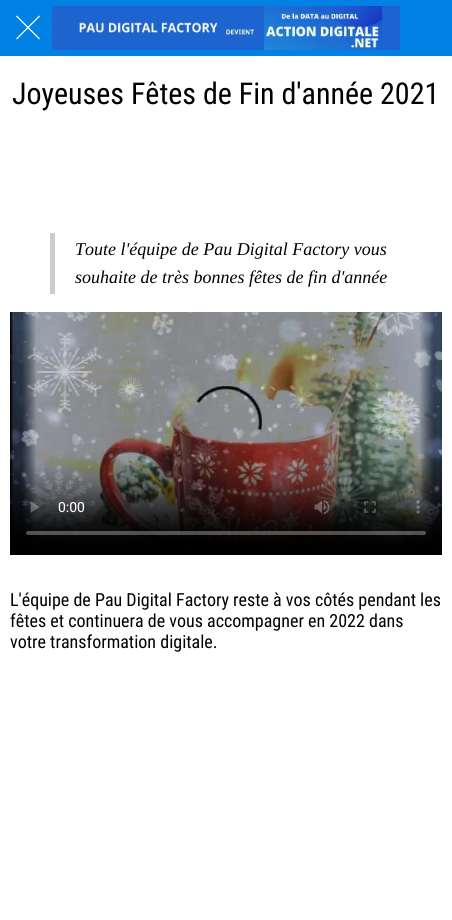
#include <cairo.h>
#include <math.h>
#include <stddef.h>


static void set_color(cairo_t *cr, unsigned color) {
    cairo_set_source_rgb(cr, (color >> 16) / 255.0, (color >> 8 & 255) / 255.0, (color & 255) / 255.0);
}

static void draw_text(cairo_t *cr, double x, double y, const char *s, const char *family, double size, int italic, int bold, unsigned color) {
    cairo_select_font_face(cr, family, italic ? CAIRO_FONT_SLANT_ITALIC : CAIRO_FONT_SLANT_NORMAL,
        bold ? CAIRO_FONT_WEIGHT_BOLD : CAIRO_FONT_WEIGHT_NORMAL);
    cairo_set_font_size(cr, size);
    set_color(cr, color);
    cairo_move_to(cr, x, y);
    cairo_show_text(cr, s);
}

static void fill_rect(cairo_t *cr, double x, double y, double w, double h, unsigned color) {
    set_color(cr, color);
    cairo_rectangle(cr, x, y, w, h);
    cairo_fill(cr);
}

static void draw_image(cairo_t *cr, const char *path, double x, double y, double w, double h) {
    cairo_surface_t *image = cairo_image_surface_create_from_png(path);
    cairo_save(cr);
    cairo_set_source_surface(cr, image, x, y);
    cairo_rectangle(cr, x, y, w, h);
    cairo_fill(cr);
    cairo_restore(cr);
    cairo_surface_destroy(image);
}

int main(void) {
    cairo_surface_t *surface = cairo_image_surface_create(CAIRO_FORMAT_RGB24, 452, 920);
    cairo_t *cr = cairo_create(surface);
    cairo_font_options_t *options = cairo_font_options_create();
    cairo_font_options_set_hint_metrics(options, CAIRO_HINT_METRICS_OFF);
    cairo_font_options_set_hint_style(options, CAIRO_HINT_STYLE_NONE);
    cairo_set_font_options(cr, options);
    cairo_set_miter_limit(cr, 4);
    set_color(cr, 0xFFFFFF);
    cairo_paint(cr);
    fill_rect(cr, 0, 0, 452, 56, 0x0081E3);
    draw_image(cr, "assets/img1.png", 16, 15, 24, 25);
    draw_image(cr, "assets/img2.png", 52, 6, 348, 44);
    draw_text(cr, 12, 104, "Joyeuses Fêtes de Fin d'année 2021", "Roboto Condensed", 30, 0, 0, 0x000000);
    fill_rect(cr, 50, 233, 5, 61, 0xCCCCCC);
    draw_text(cr, 75, 255, "Toute l'équipe de Pau Digital Factory vous", "Liberation Serif", 18, 1, 0, 0x000000);
    draw_text(cr, 75, 283, "souhaite de très bonnes fêtes de fin d'année", "Liberation Serif", 18, 1, 0, 0x000000);
    draw_image(cr, "assets/img3.png", 10, 312, 432, 243);
    draw_text(cr, 10, 606, "L'équipe de Pau Digital Factory reste à vos côtés pendant les", "Roboto Condensed", 18, 0, 0, 0x000000);
    draw_text(cr, 10, 627, "fêtes et continuera de vous accompagner en 2022 dans", "Roboto Condensed", 18, 0, 0, 0x000000);
    draw_text(cr, 10, 648, "votre transformation digitale.", "Roboto Condensed", 18, 0, 0, 0x000000);
    cairo_surface_write_to_png(surface, "output.png");
    cairo_font_options_destroy(options);
    cairo_destroy(cr);
    cairo_surface_destroy(surface);
    return 0;
}
